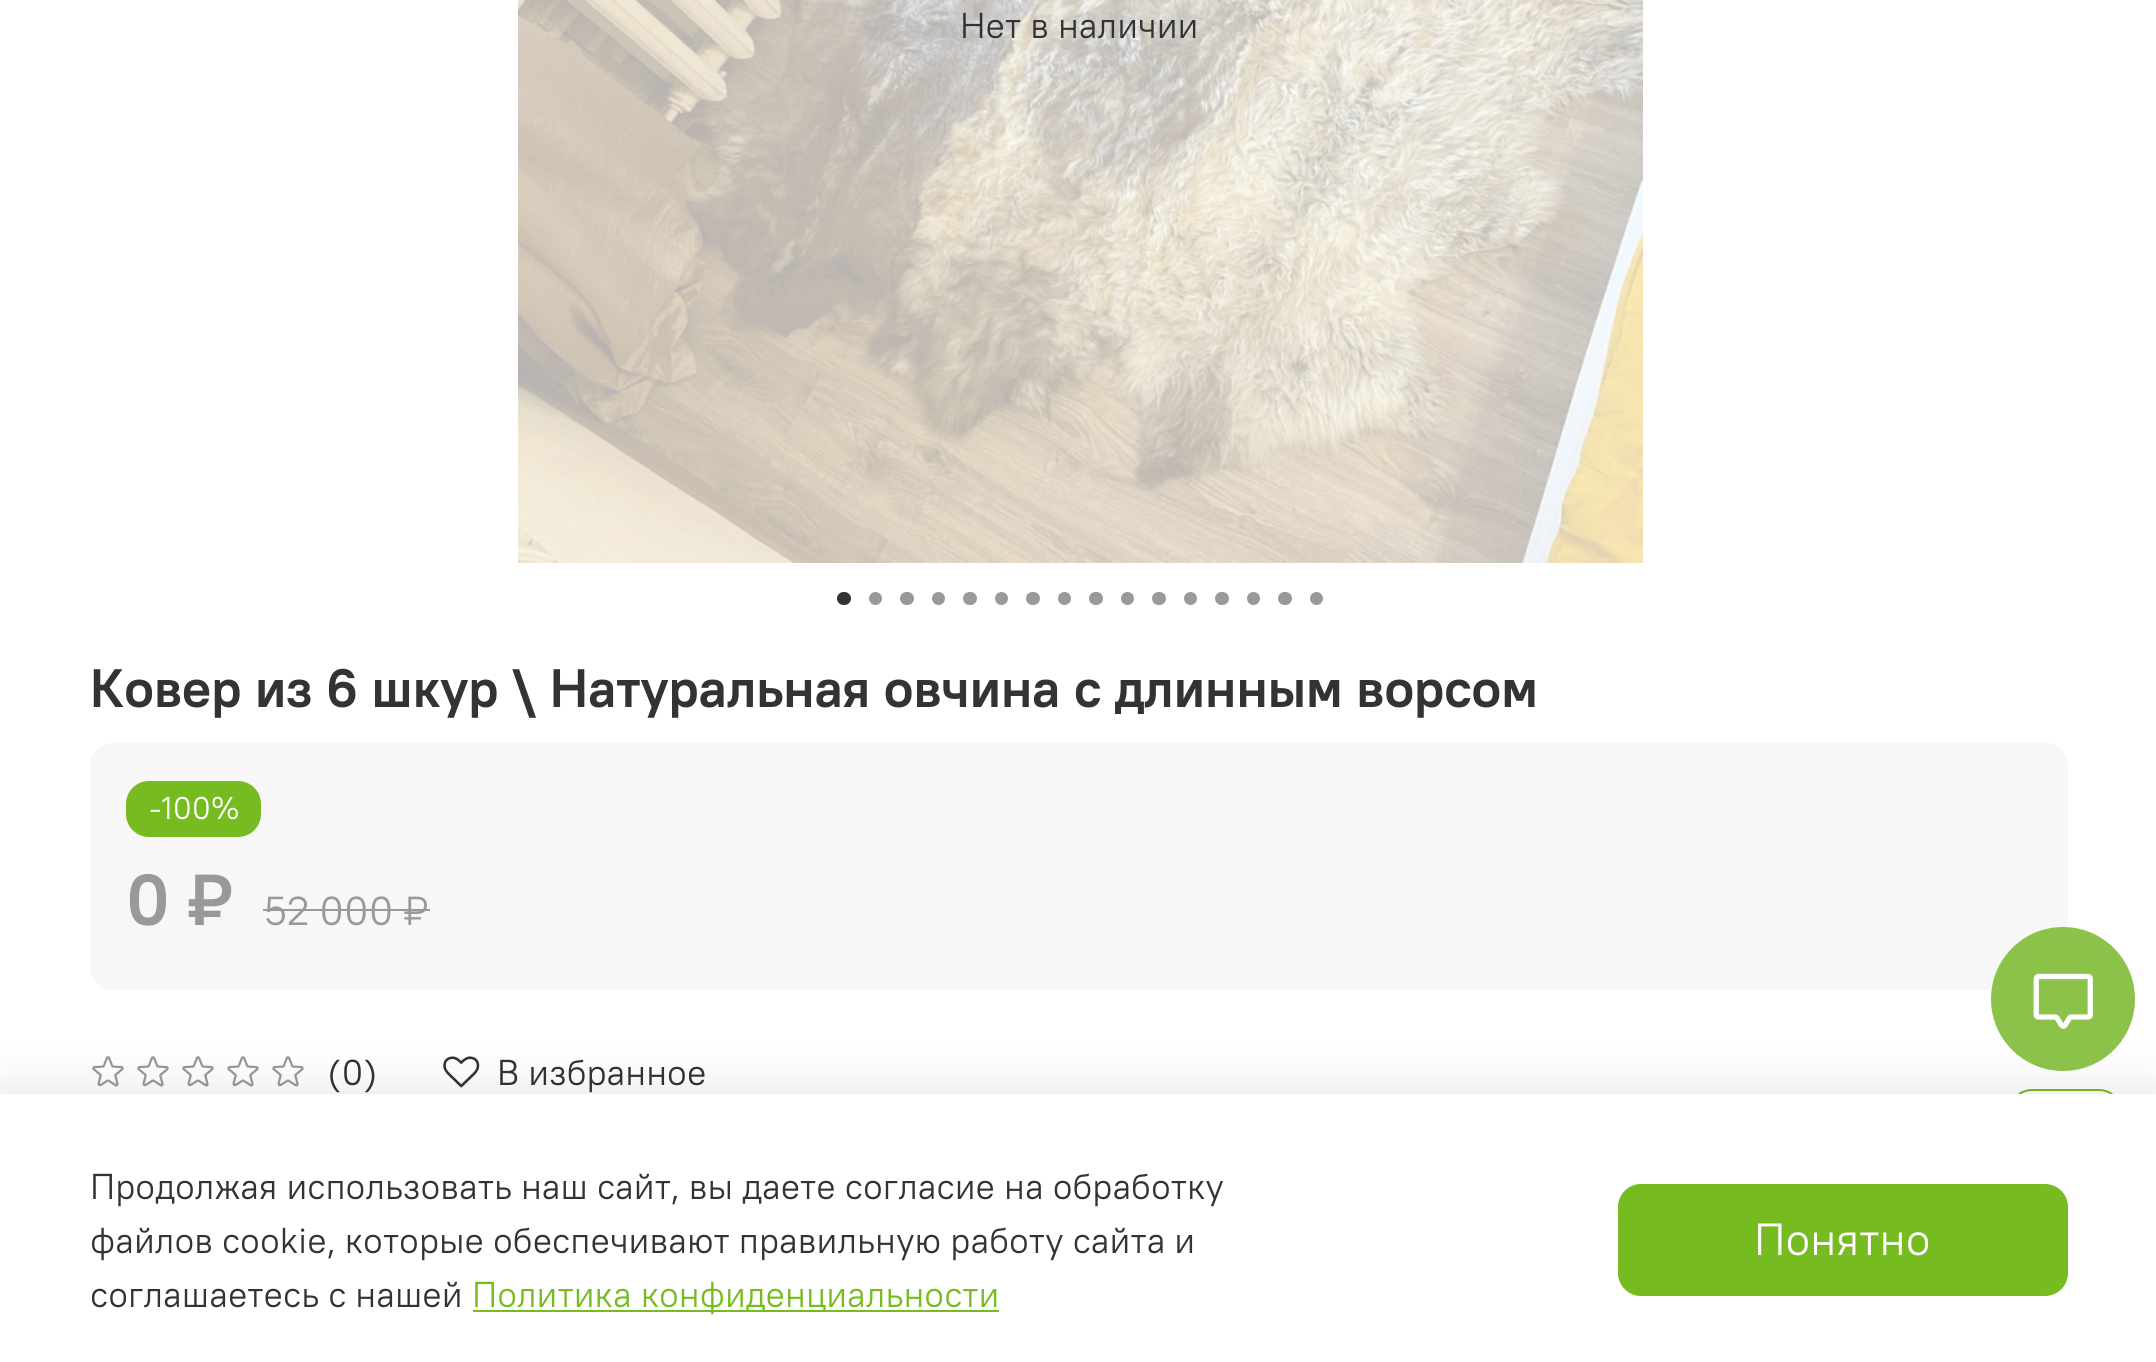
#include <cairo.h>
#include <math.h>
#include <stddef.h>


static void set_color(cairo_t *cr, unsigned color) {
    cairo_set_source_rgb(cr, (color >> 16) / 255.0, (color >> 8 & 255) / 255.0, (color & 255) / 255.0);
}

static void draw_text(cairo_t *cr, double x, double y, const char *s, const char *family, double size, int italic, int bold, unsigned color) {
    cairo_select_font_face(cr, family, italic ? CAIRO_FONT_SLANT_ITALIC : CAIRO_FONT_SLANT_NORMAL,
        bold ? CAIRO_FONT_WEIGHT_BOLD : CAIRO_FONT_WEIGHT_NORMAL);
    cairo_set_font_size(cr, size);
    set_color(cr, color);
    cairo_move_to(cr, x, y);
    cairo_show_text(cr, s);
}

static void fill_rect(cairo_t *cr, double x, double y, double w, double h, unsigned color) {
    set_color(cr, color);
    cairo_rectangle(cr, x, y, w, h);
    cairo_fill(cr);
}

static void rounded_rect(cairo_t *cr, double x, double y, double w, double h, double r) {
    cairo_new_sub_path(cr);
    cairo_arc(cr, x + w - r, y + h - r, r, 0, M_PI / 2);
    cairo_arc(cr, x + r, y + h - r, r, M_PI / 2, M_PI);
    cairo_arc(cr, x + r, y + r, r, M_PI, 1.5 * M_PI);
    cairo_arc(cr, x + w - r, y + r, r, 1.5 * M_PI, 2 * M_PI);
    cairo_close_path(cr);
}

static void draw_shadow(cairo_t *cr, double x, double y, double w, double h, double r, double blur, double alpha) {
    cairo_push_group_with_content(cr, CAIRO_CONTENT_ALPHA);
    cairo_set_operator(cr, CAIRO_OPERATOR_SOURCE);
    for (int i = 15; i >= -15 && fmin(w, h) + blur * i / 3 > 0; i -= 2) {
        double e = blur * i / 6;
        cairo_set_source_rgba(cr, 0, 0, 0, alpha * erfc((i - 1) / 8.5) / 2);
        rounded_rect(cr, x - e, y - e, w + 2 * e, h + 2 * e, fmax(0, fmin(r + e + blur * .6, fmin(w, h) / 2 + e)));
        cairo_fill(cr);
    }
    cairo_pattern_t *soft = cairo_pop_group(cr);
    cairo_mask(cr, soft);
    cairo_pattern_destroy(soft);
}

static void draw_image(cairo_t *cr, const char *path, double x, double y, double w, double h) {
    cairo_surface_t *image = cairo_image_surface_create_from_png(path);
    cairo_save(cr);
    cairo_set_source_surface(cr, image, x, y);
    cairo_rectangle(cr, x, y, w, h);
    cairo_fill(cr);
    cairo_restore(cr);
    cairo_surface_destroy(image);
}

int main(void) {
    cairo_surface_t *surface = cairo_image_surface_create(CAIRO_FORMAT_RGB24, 2156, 1362);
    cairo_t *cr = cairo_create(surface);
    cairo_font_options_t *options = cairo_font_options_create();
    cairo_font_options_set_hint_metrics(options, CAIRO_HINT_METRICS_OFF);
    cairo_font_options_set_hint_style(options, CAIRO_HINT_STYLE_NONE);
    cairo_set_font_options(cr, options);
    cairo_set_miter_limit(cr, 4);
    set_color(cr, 0xFFFFFF);
    cairo_paint(cr);
    draw_image(cr, "assets/img1.png", 518, 0, 1125, 563);
    set_color(cr, 0x333333);
    rounded_rect(cr, 837, 592, 14, 13, 6.5);
    cairo_fill(cr);
    set_color(cr, 0x999999);
    cairo_arc(cr, 875.5, 598.5, 6.5, 0, 2 * M_PI);
    cairo_fill(cr);
    rounded_rect(cr, 900, 592, 14, 13, 6.5);
    cairo_fill(cr);
    cairo_arc(cr, 938.5, 598.5, 6.5, 0, 2 * M_PI);
    cairo_fill(cr);
    rounded_rect(cr, 963, 592, 14, 13, 6.5);
    cairo_fill(cr);
    cairo_arc(cr, 1001.5, 598.5, 6.5, 0, 2 * M_PI);
    cairo_fill(cr);
    rounded_rect(cr, 1026, 592, 14, 13, 6.5);
    cairo_fill(cr);
    cairo_arc(cr, 1064.5, 598.5, 6.5, 0, 2 * M_PI);
    cairo_fill(cr);
    rounded_rect(cr, 1089, 592, 14, 13, 6.5);
    cairo_fill(cr);
    cairo_arc(cr, 1127.5, 598.5, 6.5, 0, 2 * M_PI);
    cairo_fill(cr);
    rounded_rect(cr, 1152, 592, 14, 13, 6.5);
    cairo_fill(cr);
    cairo_arc(cr, 1190.5, 598.5, 6.5, 0, 2 * M_PI);
    cairo_fill(cr);
    rounded_rect(cr, 1215, 592, 14, 13, 6.5);
    cairo_fill(cr);
    cairo_arc(cr, 1253.5, 598.5, 6.5, 0, 2 * M_PI);
    cairo_fill(cr);
    rounded_rect(cr, 1278, 592, 14, 13, 6.5);
    cairo_fill(cr);
    cairo_arc(cr, 1316.5, 598.5, 6.5, 0, 2 * M_PI);
    cairo_fill(cr);
    draw_text(cr, 960, 38, "Нет в наличии", "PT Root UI", 36, 0, 0, 0x333333);
    draw_text(cr, 90, 707, "Ковер из 6 шкур \\ Натуральная овчина с длинным ворсом", "PT Root UI", 54, 0, 1, 0x333333);
    set_color(cr, 0xF7F7F7);
    rounded_rect(cr, 90, 743, 1978, 247, 23);
    cairo_fill(cr);
    set_color(cr, 0x76BC21);
    rounded_rect(cr, 126, 781, 135, 56, 23);
    cairo_fill(cr);
    draw_text(cr, 149, 819, "-100%", "PT Root UI", 31.5, 0, 0, 0xFFFFFF);
    draw_text(cr, 126, 925, "0 ₽", "PT Root UI", 72, 0, 1, 0x999999);
    draw_text(cr, 264, 925, "52 000 ₽", "PT Root UI", 40.5, 0, 0, 0x999999);
    fill_rect(cr, 263, 909, 167, 2, 0x999999);
    draw_image(cr, "assets/img2.png", 92, 1056, 32, 31);
    draw_image(cr, "assets/img2.png", 137, 1056, 32, 31);
    draw_image(cr, "assets/img2.png", 182, 1056, 32, 31);
    draw_image(cr, "assets/img2.png", 227, 1056, 32, 31);
    draw_image(cr, "assets/img2.png", 272, 1056, 32, 31);
    draw_text(cr, 327, 1085, "(0)", "PT Root UI", 36, 0, 0, 0x333333);
    draw_image(cr, "assets/img3.png", 443, 1056, 37, 32);
    draw_text(cr, 497, 1085, "В избранное", "PT Root UI", 36, 0, 0, 0x333333);
    rounded_rect(cr, 2010, 1090, 111, 111, 22);
    set_color(cr, 0x76BC21);
    cairo_stroke(cr);
    set_color(cr, 0x000000);
    draw_shadow(cr, -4, 1087, 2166, 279, 0, 26, 0.09);
    set_color(cr, 0x8CC249);
    cairo_arc(cr, 2063, 999, 72, 0, 2 * M_PI);
    cairo_fill(cr);
    draw_image(cr, "assets/img4.png", 2033, 973, 60, 56);
    fill_rect(cr, 0, 1094, 2156, 268, 0xFFFFFF);
    draw_text(cr, 90, 1199, "Продолжая использовать наш сайт, вы даете согласие на обработку", "PT Root UI", 36, 0, 0, 0x333333);
    draw_text(cr, 90, 1253, "файлов cookie, которые обеспечивают правильную работу сайта и", "PT Root UI", 36, 0, 0, 0x333333);
    draw_text(cr, 90, 1307, "соглашаетесь с нашей", "PT Root UI", 36, 0, 0, 0x333333);
    fill_rect(cr, 473, 1310, 526, 2, 0x76BC21);
    draw_text(cr, 472, 1307, "Политика конфиденциальности", "PT Root UI", 36, 0, 0, 0x76BC21);
    rounded_rect(cr, 1618, 1184, 450, 112, 23);
    cairo_fill(cr);
    draw_text(cr, 1754, 1255, "Понятно", "PT Root UI", 45, 0, 0, 0xFFFFFF);
    cairo_surface_write_to_png(surface, "output.png");
    cairo_font_options_destroy(options);
    cairo_destroy(cr);
    cairo_surface_destroy(surface);
    return 0;
}
